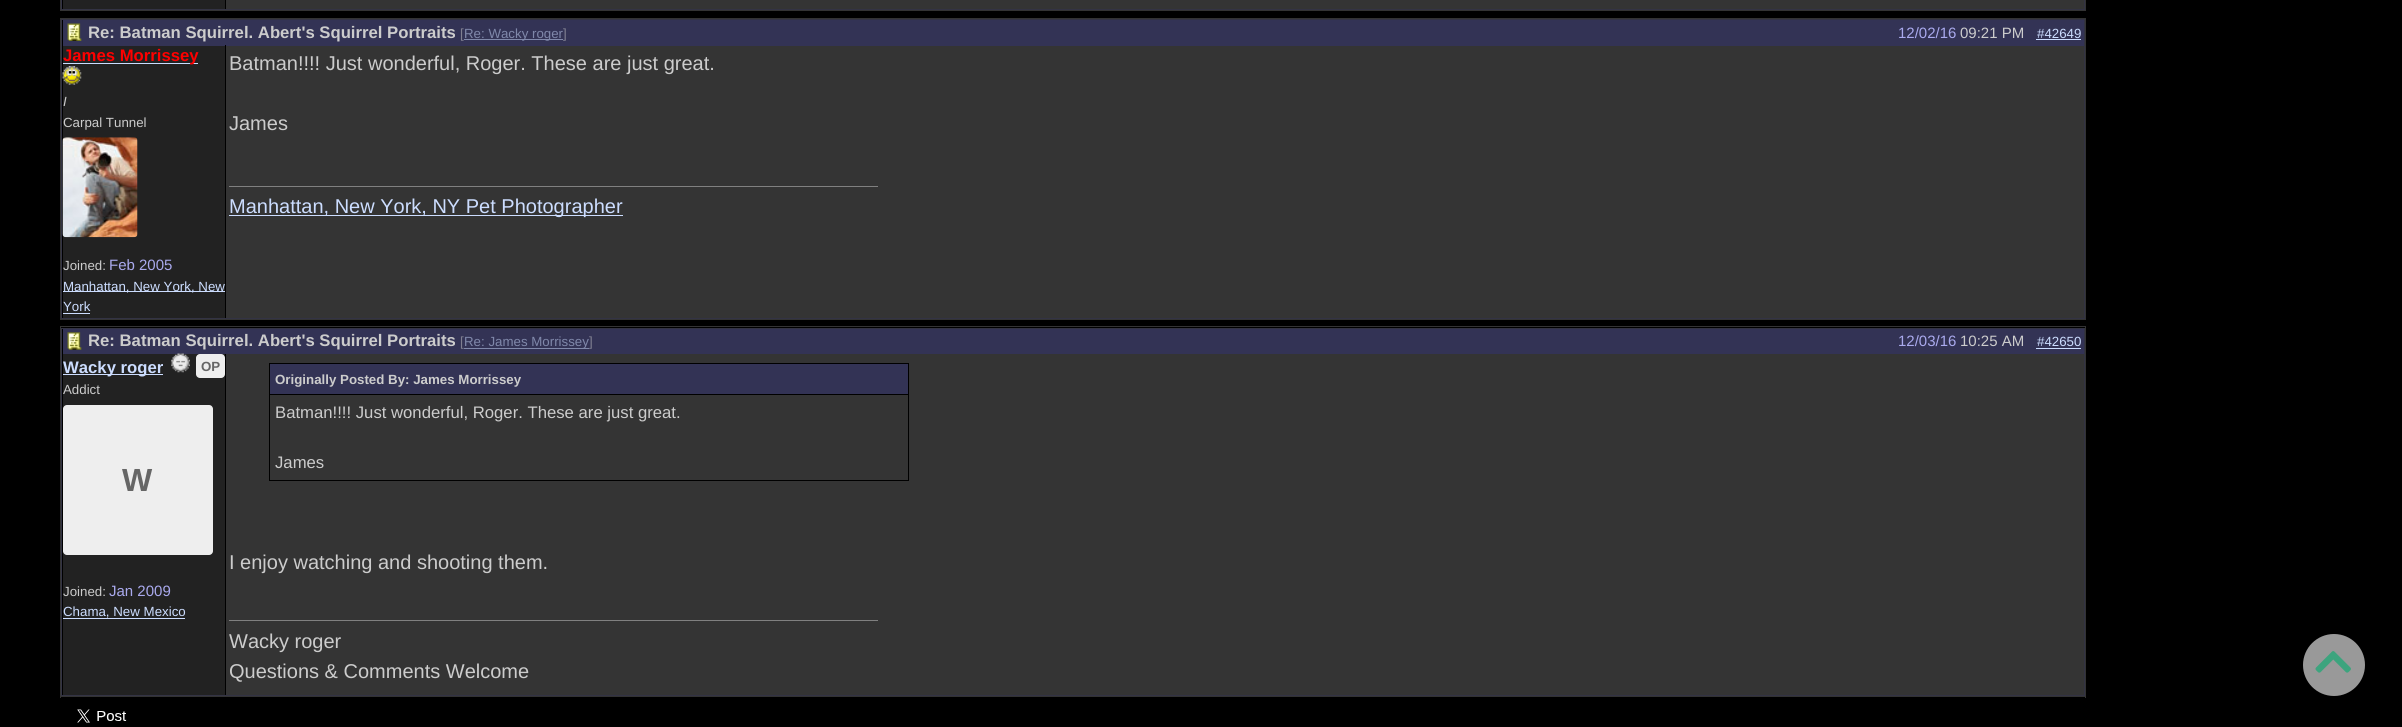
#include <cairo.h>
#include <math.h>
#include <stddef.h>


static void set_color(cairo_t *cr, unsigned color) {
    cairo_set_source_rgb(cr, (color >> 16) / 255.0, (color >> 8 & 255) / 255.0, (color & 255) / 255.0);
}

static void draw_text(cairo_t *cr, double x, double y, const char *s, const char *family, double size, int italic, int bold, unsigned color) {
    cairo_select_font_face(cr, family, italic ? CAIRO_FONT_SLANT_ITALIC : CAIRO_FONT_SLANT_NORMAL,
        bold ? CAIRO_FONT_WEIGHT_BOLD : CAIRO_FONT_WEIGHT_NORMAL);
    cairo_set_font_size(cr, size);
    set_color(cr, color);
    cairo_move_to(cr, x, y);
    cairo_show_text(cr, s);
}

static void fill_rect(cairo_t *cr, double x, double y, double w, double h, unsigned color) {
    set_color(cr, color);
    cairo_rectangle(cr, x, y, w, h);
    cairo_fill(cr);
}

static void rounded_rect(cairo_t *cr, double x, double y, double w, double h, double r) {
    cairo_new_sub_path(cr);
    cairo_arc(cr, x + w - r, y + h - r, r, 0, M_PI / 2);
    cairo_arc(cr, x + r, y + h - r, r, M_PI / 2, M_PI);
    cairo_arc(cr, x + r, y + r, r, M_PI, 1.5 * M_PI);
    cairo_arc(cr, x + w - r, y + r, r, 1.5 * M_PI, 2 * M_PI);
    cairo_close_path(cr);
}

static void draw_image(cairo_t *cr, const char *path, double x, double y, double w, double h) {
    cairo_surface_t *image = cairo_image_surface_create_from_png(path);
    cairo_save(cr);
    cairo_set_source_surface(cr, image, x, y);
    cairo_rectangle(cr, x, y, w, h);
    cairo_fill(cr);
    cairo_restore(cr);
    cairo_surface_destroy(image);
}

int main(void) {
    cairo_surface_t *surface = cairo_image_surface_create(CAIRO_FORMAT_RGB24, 2402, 727);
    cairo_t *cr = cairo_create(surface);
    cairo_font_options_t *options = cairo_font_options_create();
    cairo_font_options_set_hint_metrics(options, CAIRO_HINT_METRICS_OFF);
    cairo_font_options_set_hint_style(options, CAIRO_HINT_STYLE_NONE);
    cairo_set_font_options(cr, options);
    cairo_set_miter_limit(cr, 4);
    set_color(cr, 0x000000);
    cairo_paint(cr);
    fill_rect(cr, 2085, 0, 1, 11, 0x333333);
    fill_rect(cr, 60, 10, 2026, 1, 0x333333);
    fill_rect(cr, 60, 0, 1, 11, 0x333333);
    fill_rect(cr, 2084, 0, 1, 10, 0x333344);
    fill_rect(cr, 61, 9, 2024, 1, 0x333344);
    fill_rect(cr, 61, 0, 1, 10, 0x333344);
    fill_rect(cr, 63, 0, 162, 9, 0x222222);
    fill_rect(cr, 226, 0, 1858, 9, 0x343434);
    fill_rect(cr, 60, 18, 2026, 1, 0x333333);
    fill_rect(cr, 2085, 18, 1, 302, 0x333333);
    fill_rect(cr, 60, 319, 2026, 1, 0x333333);
    fill_rect(cr, 60, 18, 1, 302, 0x333333);
    fill_rect(cr, 61, 19, 2024, 1, 0x333344);
    fill_rect(cr, 2084, 19, 1, 300, 0x333344);
    fill_rect(cr, 61, 318, 2024, 1, 0x333344);
    fill_rect(cr, 61, 19, 1, 300, 0x333344);
    fill_rect(cr, 63, 20, 2021, 26, 0x333355);
    draw_image(cr, "assets/img1.png", 67, 23, 15, 18);
    draw_text(cr, 88, 38, "Re: Batman Squirrel. Abert's Squirrel Portraits", "Liberation Sans", 16.7, 0, 1, 0xCCCCCC);
    draw_text(cr, 460, 38, "[", "Liberation Sans", 13.3, 0, 0, 0x808091);
    fill_rect(cr, 464, 39, 99, 1, 0x8088AA);
    draw_text(cr, 464, 38, "Re: Wacky roger", "Liberation Sans", 13.3, 0, 0, 0x8088AA);
    draw_text(cr, 563, 38, "]", "Liberation Sans", 13.3, 0, 0, 0x808091);
    draw_text(cr, 1898, 38, "12/02/16", "Liberation Sans", 15, 0, 0, 0xAAAAEE);
    draw_text(cr, 1960, 38, "09:21 PM", "Liberation Sans", 15, 0, 0, 0xCCCCCC);
    draw_text(cr, 2037, 38, "#42649", "Liberation Sans", 13.3, 0, 0, 0xCCDDFF);
    fill_rect(cr, 2036, 39, 45, 1, 0xCCDDFF);
    fill_rect(cr, 63, 46, 162, 272, 0x222222);
    fill_rect(cr, 63, 63, 135, 1, 0xCCDDFF);
    draw_text(cr, 63, 61, "James Morrissey", "Liberation Sans", 16.7, 0, 1, 0xFF0000);
    draw_image(cr, "assets/img2.png", 62, 66, 20, 19);
    draw_text(cr, 63, 106, "I", "Liberation Sans", 13.3, 1, 0, 0xCCCCCC);
    draw_text(cr, 63, 127, "Carpal Tunnel", "Liberation Sans", 13.3, 0, 0, 0xCCCCCC);
    draw_image(cr, "assets/img3.png", 62, 137, 76, 101);
    draw_text(cr, 63, 270, "Joined:", "Liberation Sans", 13.3, 0, 0, 0xCCCCCC);
    draw_text(cr, 109, 270, "Feb 2005", "Liberation Sans", 15, 0, 0, 0xAAAAEE);
    fill_rect(cr, 63, 291, 162, 1, 0xCCDDFF);
    draw_text(cr, 63, 291, "Manhattan, New York, New", "Liberation Sans", 13.3, 0, 0, 0xCCDDFF);
    draw_text(cr, 63, 311, "York", "Liberation Sans", 13.3, 0, 0, 0xCCDDFF);
    fill_rect(cr, 63, 313, 27, 1, 0xCCDDFF);
    fill_rect(cr, 226, 46, 1858, 272, 0x343434);
    fill_rect(cr, 225, 45, 1, 1, 0x000000);
    draw_text(cr, 229, 70, "Batman!!!! Just wonderful, Roger. These are just great.", "Liberation Sans", 20, 0, 0, 0xCCCCCC);
    draw_text(cr, 229, 130, "James", "Liberation Sans", 20, 0, 0, 0xCCCCCC);
    fill_rect(cr, 229, 186, 649, 1, 0x808080);
    fill_rect(cr, 229, 215, 394, 1, 0xCCDDFF);
    draw_text(cr, 229, 213, "Manhattan, New York, NY Pet Photographer", "Liberation Sans", 20, 0, 0, 0xCCDDFF);
    fill_rect(cr, 60, 326, 2026, 1, 0x333333);
    fill_rect(cr, 2085, 326, 1, 372, 0x333333);
    fill_rect(cr, 60, 696, 2026, 1, 0x333333);
    fill_rect(cr, 60, 326, 1, 372, 0x333333);
    fill_rect(cr, 61, 328, 2024, 1, 0x333344);
    fill_rect(cr, 2084, 328, 1, 368, 0x333344);
    fill_rect(cr, 61, 695, 2024, 1, 0x333344);
    fill_rect(cr, 61, 328, 1, 368, 0x333344);
    fill_rect(cr, 63, 329, 2021, 25, 0x333355);
    draw_image(cr, "assets/img4.png", 67, 332, 15, 18);
    draw_text(cr, 88, 346, "Re: Batman Squirrel. Abert's Squirrel Portraits", "Liberation Sans", 16.7, 0, 1, 0xCCCCCC);
    draw_text(cr, 460, 346, "[", "Liberation Sans", 13.3, 0, 0, 0x808091);
    fill_rect(cr, 464, 348, 125, 1, 0x8088AA);
    draw_text(cr, 464, 346, "Re: James Morrissey", "Liberation Sans", 13.3, 0, 0, 0x8088AA);
    draw_text(cr, 589, 346, "]", "Liberation Sans", 13.3, 0, 0, 0x808091);
    draw_text(cr, 1898, 346, "12/03/16", "Liberation Sans", 15, 0, 0, 0xAAAAEE);
    draw_text(cr, 1960, 346, "10:25 AM", "Liberation Sans", 15, 0, 0, 0xCCCCCC);
    draw_text(cr, 2037, 346, "#42650", "Liberation Sans", 13.3, 0, 0, 0xCCDDFF);
    fill_rect(cr, 2036, 348, 45, 1, 0xCCDDFF);
    fill_rect(cr, 63, 354, 162, 341, 0x222222);
    fill_rect(cr, 63, 374, 100, 1, 0xCCDDFF);
    draw_text(cr, 63, 373, "Wacky roger", "Liberation Sans", 16.7, 0, 1, 0xCCDDFF);
    draw_image(cr, "assets/img5.png", 171, 353, 19, 20);
    set_color(cr, 0xEEEEEE);
    rounded_rect(cr, 196, 354, 29, 24, 4);
    cairo_fill(cr);
    draw_text(cr, 201, 371, "OP", "Liberation Sans", 13.3, 0, 1, 0x666666);
    draw_text(cr, 63, 394, "Addict", "Liberation Sans", 13.3, 0, 0, 0xCCCCCC);
    set_color(cr, 0xEEEEEE);
    rounded_rect(cr, 63, 405, 150, 150, 4);
    cairo_fill(cr);
    draw_text(cr, 122, 491, "W", "Liberation Sans", 32, 0, 1, 0x666666);
    draw_text(cr, 63, 596, "Joined:", "Liberation Sans", 13.3, 0, 0, 0xCCCCCC);
    draw_text(cr, 109, 596, "Jan 2009", "Liberation Sans", 15, 0, 0, 0xAAAAEE);
    draw_text(cr, 63, 616, "Chama, New Mexico", "Liberation Sans", 13.3, 0, 0, 0xCCDDFF);
    fill_rect(cr, 63, 618, 122, 1, 0xCCDDFF);
    fill_rect(cr, 226, 354, 1858, 341, 0x343434);
    cairo_rectangle(cr, 269.5, 363.5, 639, 117);
    set_color(cr, 0x000000);
    cairo_set_line_width(cr, 1);
    cairo_stroke(cr);
    fill_rect(cr, 270, 364, 638, 30, 0x333355);
    fill_rect(cr, 270, 394, 638, 1, 0x000000);
    draw_text(cr, 275, 384, "Originally Posted By: James Morrissey", "Liberation Sans", 13.3, 0, 1, 0xCCCCCC);
    draw_text(cr, 275, 418, "Batman!!!! Just wonderful, Roger. These are just great.", "Liberation Sans", 16.7, 0, 0, 0xCCCCCC);
    draw_text(cr, 275, 468, "James", "Liberation Sans", 16.7, 0, 0, 0xCCCCCC);
    draw_text(cr, 229, 569, "I enjoy watching and shooting them.", "Liberation Sans", 20, 0, 0, 0xCCCCCC);
    fill_rect(cr, 229, 620, 649, 1, 0x808080);
    draw_text(cr, 229, 648, "Wacky roger", "Liberation Sans", 20, 0, 0, 0xCCCCCC);
    draw_text(cr, 229, 678, "Questions & Comments Welcome", "Liberation Sans", 20, 0, 0, 0xCCCCCC);
    draw_image(cr, "assets/img6.png", 77, 709, 50, 14);
    set_color(cr, 0x999999);
    cairo_arc(cr, 2334, 665, 31, 0, 2 * M_PI);
    cairo_fill(cr);
    draw_image(cr, "assets/img7.png", 2315, 651, 36, 22);
    cairo_surface_write_to_png(surface, "output.png");
    cairo_font_options_destroy(options);
    cairo_destroy(cr);
    cairo_surface_destroy(surface);
    return 0;
}
